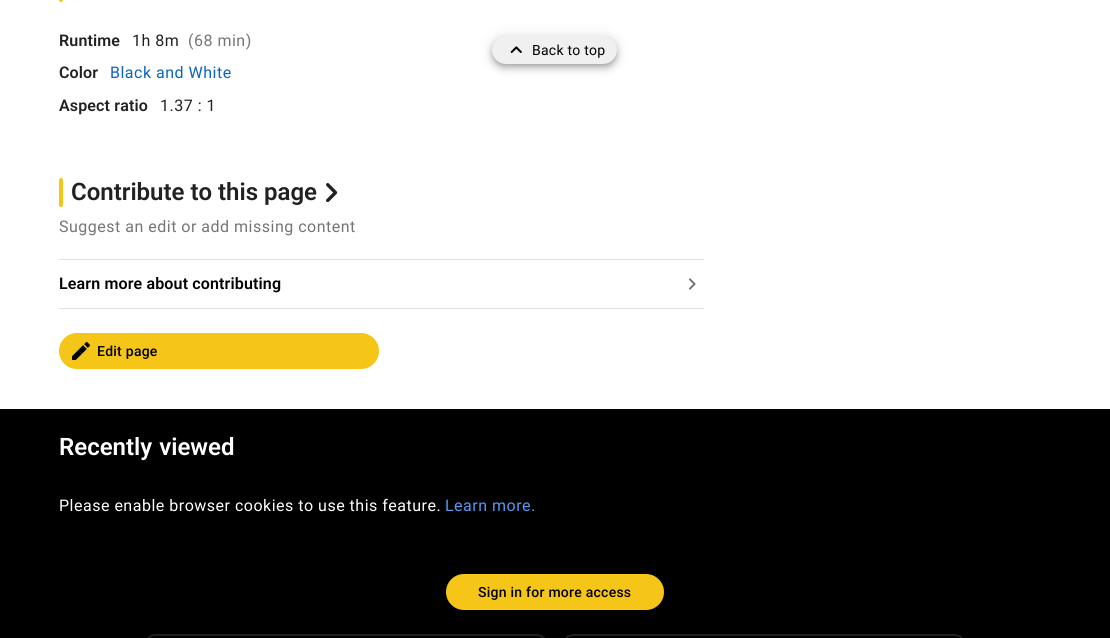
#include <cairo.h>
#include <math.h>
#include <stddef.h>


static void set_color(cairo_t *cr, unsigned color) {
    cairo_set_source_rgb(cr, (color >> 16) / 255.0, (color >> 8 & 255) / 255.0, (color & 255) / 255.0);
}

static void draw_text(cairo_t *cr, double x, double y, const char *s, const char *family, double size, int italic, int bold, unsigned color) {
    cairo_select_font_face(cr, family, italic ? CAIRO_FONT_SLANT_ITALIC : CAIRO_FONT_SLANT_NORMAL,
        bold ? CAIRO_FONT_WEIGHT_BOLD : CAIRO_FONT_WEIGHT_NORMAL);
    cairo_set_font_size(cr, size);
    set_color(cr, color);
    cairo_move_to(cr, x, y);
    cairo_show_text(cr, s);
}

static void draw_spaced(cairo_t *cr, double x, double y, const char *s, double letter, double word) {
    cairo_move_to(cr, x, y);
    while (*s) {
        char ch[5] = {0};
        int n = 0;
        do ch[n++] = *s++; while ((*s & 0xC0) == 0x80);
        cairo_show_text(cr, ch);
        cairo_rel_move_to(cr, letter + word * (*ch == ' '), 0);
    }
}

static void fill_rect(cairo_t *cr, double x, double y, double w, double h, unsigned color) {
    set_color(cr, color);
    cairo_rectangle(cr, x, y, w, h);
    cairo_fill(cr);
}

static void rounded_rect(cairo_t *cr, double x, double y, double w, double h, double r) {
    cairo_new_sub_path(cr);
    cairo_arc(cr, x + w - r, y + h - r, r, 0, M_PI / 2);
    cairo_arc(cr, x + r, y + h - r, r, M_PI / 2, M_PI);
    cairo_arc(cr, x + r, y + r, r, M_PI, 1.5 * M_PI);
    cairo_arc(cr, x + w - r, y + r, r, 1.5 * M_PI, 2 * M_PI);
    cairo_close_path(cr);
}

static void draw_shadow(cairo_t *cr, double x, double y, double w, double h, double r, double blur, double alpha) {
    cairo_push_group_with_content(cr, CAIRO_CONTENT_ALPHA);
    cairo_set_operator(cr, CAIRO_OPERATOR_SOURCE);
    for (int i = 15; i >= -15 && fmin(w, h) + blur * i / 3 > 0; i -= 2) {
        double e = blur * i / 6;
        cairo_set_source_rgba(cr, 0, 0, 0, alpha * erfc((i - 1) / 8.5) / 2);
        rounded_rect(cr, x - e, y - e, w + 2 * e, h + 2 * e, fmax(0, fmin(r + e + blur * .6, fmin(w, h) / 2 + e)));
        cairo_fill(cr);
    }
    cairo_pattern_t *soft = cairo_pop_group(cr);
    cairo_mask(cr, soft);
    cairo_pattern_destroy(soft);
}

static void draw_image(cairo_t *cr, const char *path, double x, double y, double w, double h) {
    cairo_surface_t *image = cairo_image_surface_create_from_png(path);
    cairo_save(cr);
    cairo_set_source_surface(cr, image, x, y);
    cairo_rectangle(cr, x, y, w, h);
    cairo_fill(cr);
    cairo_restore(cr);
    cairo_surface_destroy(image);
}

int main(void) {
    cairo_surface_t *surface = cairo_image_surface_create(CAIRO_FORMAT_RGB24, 1110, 638);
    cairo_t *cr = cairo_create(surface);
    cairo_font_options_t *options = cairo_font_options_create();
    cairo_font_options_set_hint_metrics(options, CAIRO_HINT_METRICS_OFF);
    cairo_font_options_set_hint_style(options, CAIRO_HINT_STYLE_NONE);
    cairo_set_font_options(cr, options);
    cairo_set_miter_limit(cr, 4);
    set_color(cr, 0x000000);
    cairo_paint(cr);
    fill_rect(cr, 0, 0, 1110, 409, 0xFFFFFF);
    set_color(cr, 0xF5C518);
    cairo_arc(cr, 61, 0, 2, 0, 2 * M_PI);
    cairo_fill(cr);
    cairo_select_font_face(cr, "Roboto SemiBold", CAIRO_FONT_SLANT_NORMAL, CAIRO_FONT_WEIGHT_NORMAL);
    cairo_set_font_size(cr, 16);
    set_color(cr, 0x212121);
    draw_spaced(cr, 59, 46, "Runtime", 0.15, 0);
    cairo_select_font_face(cr, "Roboto", CAIRO_FONT_SLANT_NORMAL, CAIRO_FONT_WEIGHT_NORMAL);
    draw_spaced(cr, 132, 46, "1h 8m", 0.5, 0);
    set_color(cr, 0x757575);
    draw_spaced(cr, 188, 46, "(68 min)", 0.5, 0);
    cairo_select_font_face(cr, "Roboto SemiBold", CAIRO_FONT_SLANT_NORMAL, CAIRO_FONT_WEIGHT_NORMAL);
    set_color(cr, 0x212121);
    draw_spaced(cr, 59, 78, "Color", 0.15, 0);
    cairo_select_font_face(cr, "Roboto", CAIRO_FONT_SLANT_NORMAL, CAIRO_FONT_WEIGHT_NORMAL);
    set_color(cr, 0x0E63BE);
    draw_spaced(cr, 110, 78, "Black and White", 0.5, 0);
    cairo_select_font_face(cr, "Roboto SemiBold", CAIRO_FONT_SLANT_NORMAL, CAIRO_FONT_WEIGHT_NORMAL);
    set_color(cr, 0x212121);
    draw_spaced(cr, 59, 111, "Aspect ratio", 0.15, 0);
    cairo_select_font_face(cr, "Roboto", CAIRO_FONT_SLANT_NORMAL, CAIRO_FONT_WEIGHT_NORMAL);
    draw_spaced(cr, 160, 111, "1.37 : 1", 0.5, 0);
    set_color(cr, 0xF5C518);
    rounded_rect(cr, 59, 178, 4, 29, 2);
    cairo_fill(cr);
    draw_text(cr, 71, 200, "Contribute to this page", "Roboto SemiBold", 24, 0, 0, 0x212121);
    draw_image(cr, "assets/img1.png", 326, 183, 12, 19);
    cairo_select_font_face(cr, "Roboto", CAIRO_FONT_SLANT_NORMAL, CAIRO_FONT_WEIGHT_NORMAL);
    cairo_set_font_size(cr, 16);
    set_color(cr, 0x757575);
    draw_spaced(cr, 59, 232, "Suggest an edit or add missing content", 0.5, 0);
    fill_rect(cr, 59, 259, 645, 1, 0xE0E0E0);
    fill_rect(cr, 59, 308, 645, 1, 0xE0E0E0);
    cairo_select_font_face(cr, "Roboto SemiBold", CAIRO_FONT_SLANT_NORMAL, CAIRO_FONT_WEIGHT_NORMAL);
    set_color(cr, 0x000000);
    draw_spaced(cr, 59, 289, "Learn more about contributing", 0.15, 0);
    draw_image(cr, "assets/img2.png", 689, 278, 7, 12);
    set_color(cr, 0xF5C518);
    rounded_rect(cr, 59, 333, 320, 36, 18);
    cairo_fill(cr);
    draw_image(cr, "assets/img3.png", 72, 342, 18, 18);
    cairo_select_font_face(cr, "Roboto Medium", CAIRO_FONT_SLANT_NORMAL, CAIRO_FONT_WEIGHT_NORMAL);
    cairo_set_font_size(cr, 14);
    set_color(cr, 0x000000);
    draw_spaced(cr, 97, 356, "Edit page", 0.25, 0);
    set_color(cr, 0x000000);
    draw_shadow(cr, 492, 37, 125, 28, 14, 7, 0.12);
    draw_shadow(cr, 492, 41, 125, 28, 14, 4, 0.14);
    draw_shadow(cr, 493, 40, 123, 26, 13, 2.5, 0.2);
    set_color(cr, 0xF0F0F0);
    rounded_rect(cr, 492, 36, 125, 28, 14);
    cairo_fill(cr);
    draw_image(cr, "assets/img4.png", 510, 46, 12, 7);
    cairo_select_font_face(cr, "Roboto", CAIRO_FONT_SLANT_NORMAL, CAIRO_FONT_WEIGHT_NORMAL);
    set_color(cr, 0x000000);
    draw_spaced(cr, 532, 55, "Back to top", 0.25, 0);
    cairo_select_font_face(cr, "Roboto SemiBold", CAIRO_FONT_SLANT_NORMAL, CAIRO_FONT_WEIGHT_NORMAL);
    cairo_set_font_size(cr, 24);
    set_color(cr, 0xFFFFFF);
    draw_spaced(cr, 59, 455, "Recently viewed", 0, 1);
    cairo_select_font_face(cr, "Roboto", CAIRO_FONT_SLANT_NORMAL, CAIRO_FONT_WEIGHT_NORMAL);
    cairo_set_font_size(cr, 16);
    draw_spaced(cr, 59, 511, "Please enable browser cookies to use this feature.", 0.5, 0);
    set_color(cr, 0x5799EF);
    draw_spaced(cr, 445, 511, "Learn more.", 0.5, 0);
    set_color(cr, 0xF5C518);
    rounded_rect(cr, 446, 574, 218, 36, 18);
    cairo_fill(cr);
    cairo_select_font_face(cr, "Roboto Medium", CAIRO_FONT_SLANT_NORMAL, CAIRO_FONT_WEIGHT_NORMAL);
    cairo_set_font_size(cr, 14);
    set_color(cr, 0x000000);
    draw_spaced(cr, 478, 597, "Sign in for more access", 0.25, 0);
    rounded_rect(cr, 146, 635, 400, 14, 9);
    set_color(cr, 0x1F1F1F);
    cairo_stroke(cr);
    rounded_rect(cr, 564, 635, 400, 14, 9);
    cairo_stroke(cr);
    cairo_surface_write_to_png(surface, "output.png");
    cairo_font_options_destroy(options);
    cairo_destroy(cr);
    cairo_surface_destroy(surface);
    return 0;
}
